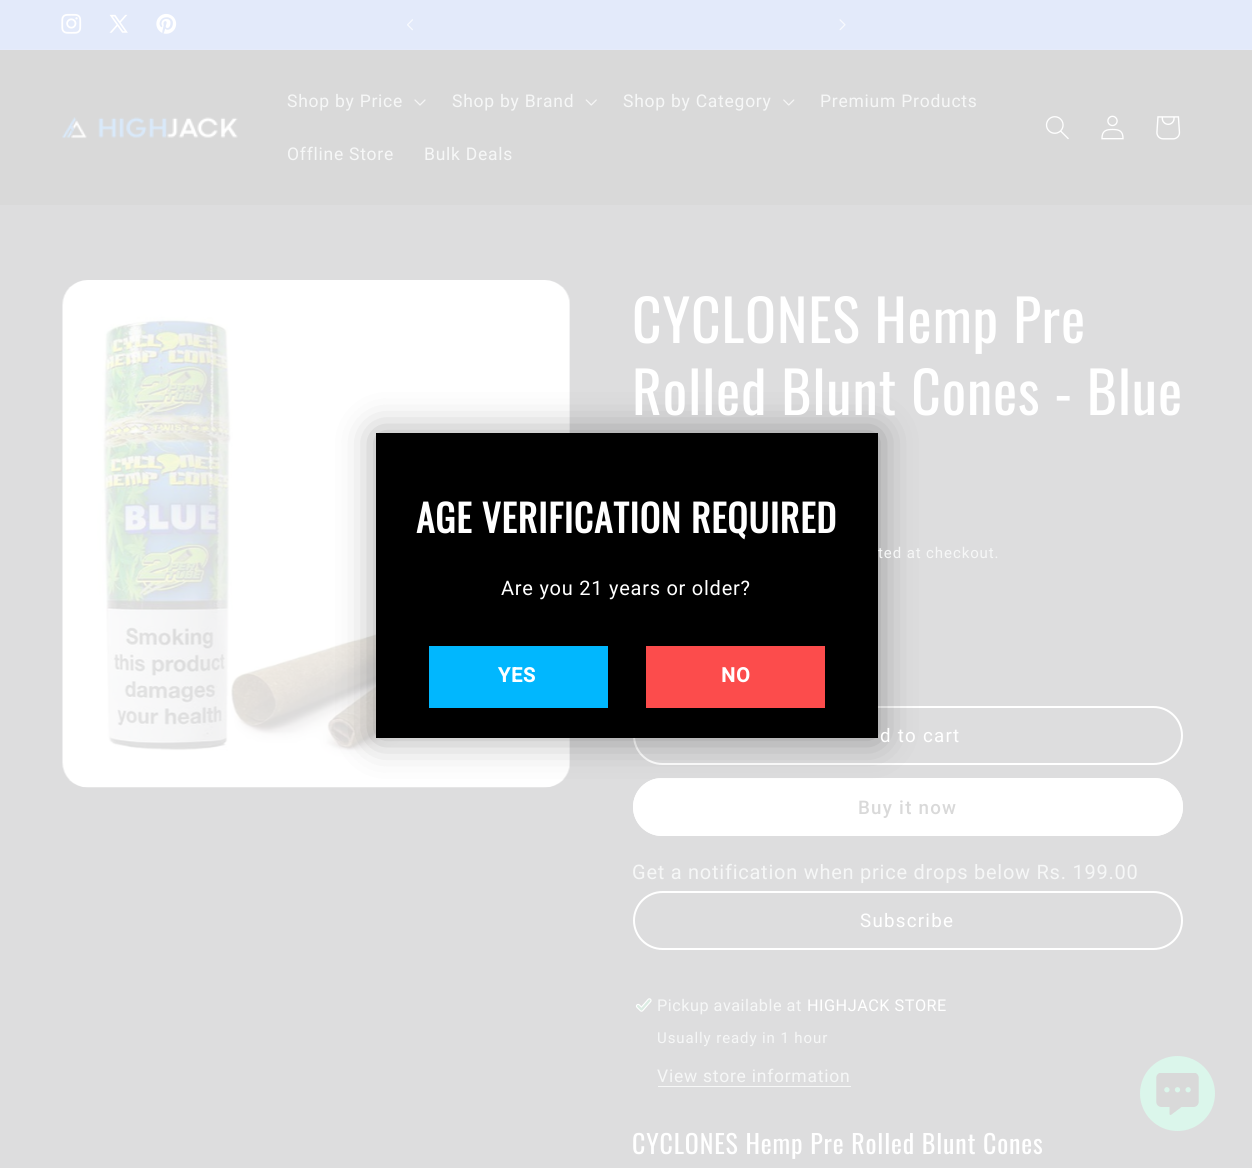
#include <cairo.h>
#include <math.h>
#include <stddef.h>


static void set_color(cairo_t *cr, unsigned color) {
    cairo_set_source_rgb(cr, (color >> 16) / 255.0, (color >> 8 & 255) / 255.0, (color & 255) / 255.0);
}

static void draw_spaced(cairo_t *cr, double x, double y, const char *s, double letter, double word) {
    cairo_move_to(cr, x, y);
    while (*s) {
        char ch[5] = {0};
        int n = 0;
        do ch[n++] = *s++; while ((*s & 0xC0) == 0x80);
        cairo_show_text(cr, ch);
        cairo_rel_move_to(cr, letter + word * (*ch == ' '), 0);
    }
}

static void fill_rect(cairo_t *cr, double x, double y, double w, double h, unsigned color) {
    set_color(cr, color);
    cairo_rectangle(cr, x, y, w, h);
    cairo_fill(cr);
}

static void rounded_rect(cairo_t *cr, double x, double y, double w, double h, double r) {
    cairo_new_sub_path(cr);
    cairo_arc(cr, x + w - r, y + h - r, r, 0, M_PI / 2);
    cairo_arc(cr, x + r, y + h - r, r, M_PI / 2, M_PI);
    cairo_arc(cr, x + r, y + r, r, M_PI, 1.5 * M_PI);
    cairo_arc(cr, x + w - r, y + r, r, 1.5 * M_PI, 2 * M_PI);
    cairo_close_path(cr);
}

static void draw_shadow(cairo_t *cr, double x, double y, double w, double h, double r, double blur, double alpha) {
    cairo_push_group_with_content(cr, CAIRO_CONTENT_ALPHA);
    cairo_set_operator(cr, CAIRO_OPERATOR_SOURCE);
    for (int i = 15; i >= -15 && fmin(w, h) + blur * i / 3 > 0; i -= 2) {
        double e = blur * i / 6;
        cairo_set_source_rgba(cr, 0, 0, 0, alpha * erfc((i - 1) / 8.5) / 2);
        rounded_rect(cr, x - e, y - e, w + 2 * e, h + 2 * e, fmax(0, fmin(r + e + blur * .6, fmin(w, h) / 2 + e)));
        cairo_fill(cr);
    }
    cairo_pattern_t *soft = cairo_pop_group(cr);
    cairo_mask(cr, soft);
    cairo_pattern_destroy(soft);
}

static void draw_image(cairo_t *cr, const char *path, double x, double y, double w, double h) {
    cairo_surface_t *image = cairo_image_surface_create_from_png(path);
    cairo_save(cr);
    cairo_set_source_surface(cr, image, x, y);
    cairo_rectangle(cr, x, y, w, h);
    cairo_fill(cr);
    cairo_restore(cr);
    cairo_surface_destroy(image);
}

int main(void) {
    cairo_surface_t *surface = cairo_image_surface_create(CAIRO_FORMAT_RGB24, 1252, 1168);
    cairo_t *cr = cairo_create(surface);
    cairo_font_options_t *options = cairo_font_options_create();
    cairo_font_options_set_hint_metrics(options, CAIRO_HINT_METRICS_OFF);
    cairo_font_options_set_hint_style(options, CAIRO_HINT_STYLE_NONE);
    cairo_set_font_options(cr, options);
    cairo_set_miter_limit(cr, 4);
    set_color(cr, 0xDDDDDE);
    cairo_paint(cr);
    fill_rect(cr, 0, 0, 1252, 49, 0xE3EAFA);
    fill_rect(cr, 0, 49, 1252, 1, 0xE6EBFA);
    draw_image(cr, "assets/img1.png", 61, 13, 21, 21);
    draw_image(cr, "assets/img2.png", 109, 14, 19, 19);
    draw_image(cr, "assets/img3.png", 156, 13, 21, 21);
    draw_image(cr, "assets/img4.png", 407, 19, 6, 12);
    draw_image(cr, "assets/img5.png", 839, 19, 7, 12);
    fill_rect(cr, 0, 50, 1252, 155, 0xD9D9D9);
    draw_image(cr, "assets/img6.png", 62, 117, 176, 22);
    cairo_select_font_face(cr, "Roboto", CAIRO_FONT_SLANT_NORMAL, CAIRO_FONT_WEIGHT_NORMAL);
    cairo_set_font_size(cr, 17.5);
    set_color(cr, 0xF6F7F7);
    draw_spaced(cr, 287, 107, "Shop by Price", 0.75, 0);
    draw_image(cr, "assets/img7.png", 414, 99, 12, 7);
    draw_spaced(cr, 452, 107, "Shop by Brand", 0.75, 0);
    draw_image(cr, "assets/img8.png", 585, 99, 12, 7);
    draw_spaced(cr, 623, 107, "Shop by Category", 0.75, 0);
    draw_image(cr, "assets/img9.png", 783, 99, 12, 7);
    draw_spaced(cr, 820, 107, "Premium Products", 0.75, 0);
    draw_spaced(cr, 287, 160, "Offline Store", 0.75, 0);
    draw_spaced(cr, 424, 160, "Bulk Deals", 0.75, 0);
    draw_image(cr, "assets/img10.png", 1045, 116, 24, 24);
    draw_image(cr, "assets/img11.png", 1101, 115, 23, 25);
    draw_image(cr, "assets/img12.png", 1156, 116, 25, 24);
    draw_image(cr, "assets/img13.png", 62, 280, 508, 508);
    rounded_rect(cr, 634, 707, 548, 57, 28.5);
    set_color(cr, 0xFFFFFF);
    cairo_stroke(cr);
    rounded_rect(cr, 633, 778, 550, 58, 29);
    cairo_fill(cr);
    rounded_rect(cr, 633.5, 778.5, 549, 57, 28.5);
    cairo_set_line_width(cr, 1);
    cairo_stroke(cr);
    set_color(cr, 0x000000);
    draw_shadow(cr, 376, 433, 502, 305, 0, 19, 0.35);
    cairo_set_font_size(cr, 15);
    set_color(cr, 0xF6F7F7);
    draw_spaced(cr, 878, 558, "ted at checkout.", 0.9, 0);
    fill_rect(cr, 376, 433, 502, 305, 0x000000);
    cairo_select_font_face(cr, "Oswald", CAIRO_FONT_SLANT_NORMAL, CAIRO_FONT_WEIGHT_BOLD);
    cairo_set_font_size(cr, 37.5);
    set_color(cr, 0xFFFFFF);
    draw_spaced(cr, 416, 533, "AGE VERIFICATION REQUIRED", 0.85, 0);
    cairo_select_font_face(cr, "Roboto", CAIRO_FONT_SLANT_NORMAL, CAIRO_FONT_WEIGHT_NORMAL);
    cairo_set_font_size(cr, 20);
    draw_spaced(cr, 501, 595, "Are you 21 years or older?", 0.75, 0);
    fill_rect(cr, 429, 646, 179, 62, 0x01B7FE);
    cairo_select_font_face(cr, "Roboto", CAIRO_FONT_SLANT_NORMAL, CAIRO_FONT_WEIGHT_BOLD);
    set_color(cr, 0xFFFFFF);
    draw_spaced(cr, 498, 682, "YES", 0.75, 0);
    fill_rect(cr, 646, 646, 179, 62, 0xFC4C4C);
    set_color(cr, 0xFFFFFF);
    draw_spaced(cr, 721, 682, "NO", 0.75, 0);
    cairo_select_font_face(cr, "Oswald", CAIRO_FONT_SLANT_NORMAL, CAIRO_FONT_WEIGHT_NORMAL);
    cairo_set_font_size(cr, 57.5);
    draw_spaced(cr, 632, 343, "CYCLONES Hemp Pre", 0.85, 0);
    draw_spaced(cr, 632, 415, "Rolled Blunt Cones - Blue", 0.85, 0);
    cairo_select_font_face(cr, "Roboto", CAIRO_FONT_SLANT_NORMAL, CAIRO_FONT_WEIGHT_NORMAL);
    cairo_set_font_size(cr, 18.75);
    draw_spaced(cr, 880, 742, "d to cart", 1.25, 0);
    cairo_select_font_face(cr, "Roboto Medium", CAIRO_FONT_SLANT_NORMAL, CAIRO_FONT_WEIGHT_NORMAL);
    set_color(cr, 0xD9D9D9);
    draw_spaced(cr, 858, 814, "Buy it now", 1.25, 0);
    cairo_select_font_face(cr, "Roboto", CAIRO_FONT_SLANT_NORMAL, CAIRO_FONT_WEIGHT_NORMAL);
    cairo_set_font_size(cr, 20);
    set_color(cr, 0xF6F7F7);
    draw_spaced(cr, 632, 879, "Get a notification when price drops below Rs. 199.00", 0.75, 0);
    rounded_rect(cr, 634, 892, 548, 57, 28.5);
    set_color(cr, 0xFFFFFF);
    cairo_set_line_width(cr, 2);
    cairo_stroke(cr);
    cairo_set_font_size(cr, 18.75);
    draw_spaced(cr, 860, 927, "Subscribe", 1.25, 0);
    draw_image(cr, "assets/img14.png", 635, 998, 17, 14);
    cairo_set_font_size(cr, 16.25);
    set_color(cr, 0xF6F7F7);
    draw_spaced(cr, 657, 1011, "Pickup available at", 0.5, 0);
    set_color(cr, 0xFFFFFF);
    draw_spaced(cr, 807, 1011, "HIGHJACK STORE", 0.5, 0);
    cairo_set_font_size(cr, 15);
    set_color(cr, 0xF6F7F7);
    draw_spaced(cr, 657, 1043, "Usually ready in 1 hour", 0.9, 0);
    cairo_set_font_size(cr, 17.5);
    draw_spaced(cr, 657, 1082, "View store information", 0.75, 0);
    fill_rect(cr, 658, 1086, 193, 1, 0xF6F7F7);
    cairo_select_font_face(cr, "Oswald", CAIRO_FONT_SLANT_NORMAL, CAIRO_FONT_WEIGHT_NORMAL);
    cairo_set_font_size(cr, 25.9);
    set_color(cr, 0xFFFFFF);
    draw_spaced(cr, 632, 1154, "CYCLONES Hemp Pre Rolled Blunt Cones", 0.85, 0);
    set_color(cr, 0xDBF6EB);
    cairo_new_path(cr);
    cairo_arc(cr, 1177.5, 1093.5, 37.5, 0, 2 * M_PI);
    cairo_fill(cr);
    draw_image(cr, "assets/img15.png", 1156, 1073, 43, 42);
    cairo_surface_write_to_png(surface, "output.png");
    cairo_font_options_destroy(options);
    cairo_destroy(cr);
    cairo_surface_destroy(surface);
    return 0;
}
